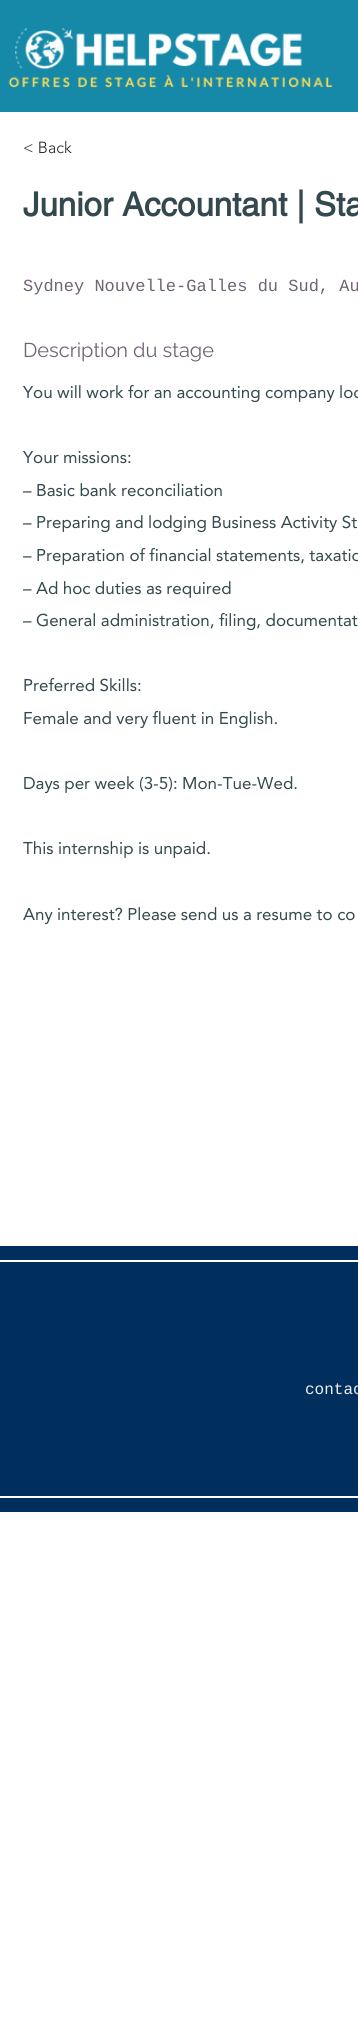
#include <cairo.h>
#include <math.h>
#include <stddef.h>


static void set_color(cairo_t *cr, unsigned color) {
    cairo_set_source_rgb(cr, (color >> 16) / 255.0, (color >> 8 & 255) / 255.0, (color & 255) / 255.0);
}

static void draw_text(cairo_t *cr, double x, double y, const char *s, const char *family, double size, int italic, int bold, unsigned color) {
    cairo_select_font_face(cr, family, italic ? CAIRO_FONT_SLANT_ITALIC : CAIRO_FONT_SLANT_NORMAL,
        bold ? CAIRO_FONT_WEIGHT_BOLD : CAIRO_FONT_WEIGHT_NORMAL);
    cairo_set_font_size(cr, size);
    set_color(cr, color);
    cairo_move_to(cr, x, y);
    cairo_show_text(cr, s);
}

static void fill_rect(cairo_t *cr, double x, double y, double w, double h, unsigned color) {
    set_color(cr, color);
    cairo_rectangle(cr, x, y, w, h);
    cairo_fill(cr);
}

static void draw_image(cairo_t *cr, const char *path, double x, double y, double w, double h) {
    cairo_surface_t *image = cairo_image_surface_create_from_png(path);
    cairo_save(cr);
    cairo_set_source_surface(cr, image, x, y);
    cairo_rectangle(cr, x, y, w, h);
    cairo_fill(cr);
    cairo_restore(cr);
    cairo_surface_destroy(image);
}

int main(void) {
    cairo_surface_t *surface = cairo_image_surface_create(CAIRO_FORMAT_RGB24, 358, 2035);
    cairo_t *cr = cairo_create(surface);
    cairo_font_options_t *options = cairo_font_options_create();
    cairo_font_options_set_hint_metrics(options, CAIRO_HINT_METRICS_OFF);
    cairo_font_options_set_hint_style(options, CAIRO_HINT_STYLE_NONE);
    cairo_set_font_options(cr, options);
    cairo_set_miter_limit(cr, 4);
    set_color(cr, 0xFFFFFF);
    cairo_paint(cr);
    fill_rect(cr, 0, 0, 358, 112, 0x1689A8);
    draw_image(cr, "assets/img1.png", 8, 28, 325, 60);
    draw_text(cr, 23, 153, "< Back", "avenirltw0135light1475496 Light", 16, 0, 0, 0x262027);
    draw_text(cr, 23, 216, "Junior Accountant | Sta", "helvetica", 33, 0, 1, 0x34494F);
    draw_text(cr, 23, 291, "Sydney Nouvelle-Galles du Sud, Au", "Liberation Mono", 17, 0, 0, 0x726277);
    draw_text(cr, 23, 357, "Description du stage", "Raleway", 20, 0, 0, 0x726277);
    draw_text(cr, 23, 398, "You will work for an accounting company loc", "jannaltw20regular", 17, 0, 0, 0x34494F);
    draw_text(cr, 23, 463, "Your missions:", "jannaltw20regular", 17, 0, 0, 0x34494F);
    draw_text(cr, 23, 496, "– Basic bank reconciliation", "jannaltw20regular", 17, 0, 0, 0x34494F);
    draw_text(cr, 23, 528, "– Preparing and lodging Business Activity St", "jannaltw20regular", 17, 0, 0, 0x34494F);
    draw_text(cr, 23, 561, "– Preparation of financial statements, taxatio", "jannaltw20regular", 17, 0, 0, 0x34494F);
    draw_text(cr, 23, 594, "– Ad hoc duties as required", "jannaltw20regular", 17, 0, 0, 0x34494F);
    draw_text(cr, 23, 626, "– General administration, filing, documentat", "jannaltw20regular", 17, 0, 0, 0x34494F);
    draw_text(cr, 23, 691, "Preferred Skills:", "jannaltw20regular", 17, 0, 0, 0x34494F);
    draw_text(cr, 23, 724, "Female and very fluent in English.", "jannaltw20regular", 17, 0, 0, 0x34494F);
    draw_text(cr, 23, 789, "Days per week (3-5): Mon-Tue-Wed.", "jannaltw20regular", 17, 0, 0, 0x34494F);
    draw_text(cr, 23, 854, "This internship is unpaid.", "jannaltw20regular", 17, 0, 0, 0x34494F);
    draw_text(cr, 23, 920, "Any interest? Please send us a resume to co", "jannaltw20regular", 17, 0, 0, 0x34494F);
    fill_rect(cr, 0, 1246, 358, 266, 0x002E5D);
    fill_rect(cr, 0, 1260, 358, 2, 0xFFFFFF);
    fill_rect(cr, 0, 1496, 358, 2, 0xFFFFFF);
    draw_text(cr, 305, 1394, "contac", "Liberation Mono", 16, 0, 0, 0xEFEFF4);
    cairo_surface_write_to_png(surface, "output.png");
    cairo_font_options_destroy(options);
    cairo_destroy(cr);
    cairo_surface_destroy(surface);
    return 0;
}
